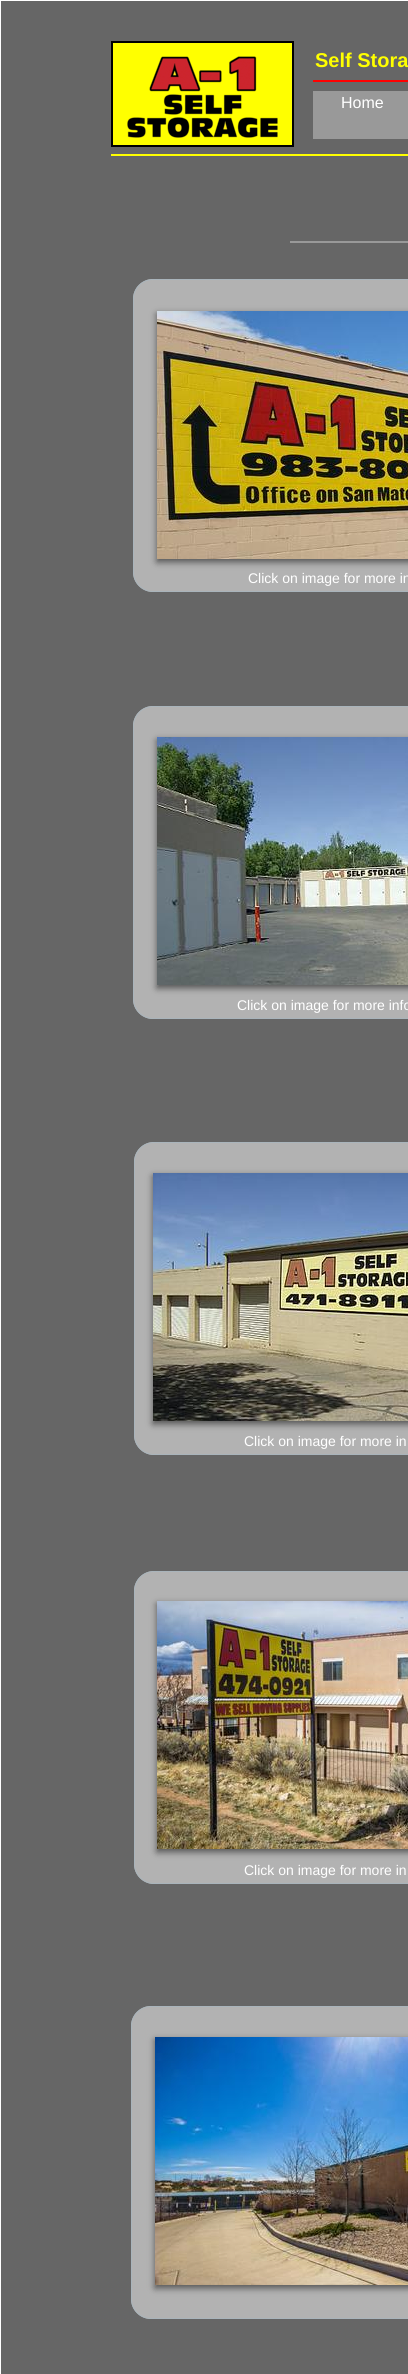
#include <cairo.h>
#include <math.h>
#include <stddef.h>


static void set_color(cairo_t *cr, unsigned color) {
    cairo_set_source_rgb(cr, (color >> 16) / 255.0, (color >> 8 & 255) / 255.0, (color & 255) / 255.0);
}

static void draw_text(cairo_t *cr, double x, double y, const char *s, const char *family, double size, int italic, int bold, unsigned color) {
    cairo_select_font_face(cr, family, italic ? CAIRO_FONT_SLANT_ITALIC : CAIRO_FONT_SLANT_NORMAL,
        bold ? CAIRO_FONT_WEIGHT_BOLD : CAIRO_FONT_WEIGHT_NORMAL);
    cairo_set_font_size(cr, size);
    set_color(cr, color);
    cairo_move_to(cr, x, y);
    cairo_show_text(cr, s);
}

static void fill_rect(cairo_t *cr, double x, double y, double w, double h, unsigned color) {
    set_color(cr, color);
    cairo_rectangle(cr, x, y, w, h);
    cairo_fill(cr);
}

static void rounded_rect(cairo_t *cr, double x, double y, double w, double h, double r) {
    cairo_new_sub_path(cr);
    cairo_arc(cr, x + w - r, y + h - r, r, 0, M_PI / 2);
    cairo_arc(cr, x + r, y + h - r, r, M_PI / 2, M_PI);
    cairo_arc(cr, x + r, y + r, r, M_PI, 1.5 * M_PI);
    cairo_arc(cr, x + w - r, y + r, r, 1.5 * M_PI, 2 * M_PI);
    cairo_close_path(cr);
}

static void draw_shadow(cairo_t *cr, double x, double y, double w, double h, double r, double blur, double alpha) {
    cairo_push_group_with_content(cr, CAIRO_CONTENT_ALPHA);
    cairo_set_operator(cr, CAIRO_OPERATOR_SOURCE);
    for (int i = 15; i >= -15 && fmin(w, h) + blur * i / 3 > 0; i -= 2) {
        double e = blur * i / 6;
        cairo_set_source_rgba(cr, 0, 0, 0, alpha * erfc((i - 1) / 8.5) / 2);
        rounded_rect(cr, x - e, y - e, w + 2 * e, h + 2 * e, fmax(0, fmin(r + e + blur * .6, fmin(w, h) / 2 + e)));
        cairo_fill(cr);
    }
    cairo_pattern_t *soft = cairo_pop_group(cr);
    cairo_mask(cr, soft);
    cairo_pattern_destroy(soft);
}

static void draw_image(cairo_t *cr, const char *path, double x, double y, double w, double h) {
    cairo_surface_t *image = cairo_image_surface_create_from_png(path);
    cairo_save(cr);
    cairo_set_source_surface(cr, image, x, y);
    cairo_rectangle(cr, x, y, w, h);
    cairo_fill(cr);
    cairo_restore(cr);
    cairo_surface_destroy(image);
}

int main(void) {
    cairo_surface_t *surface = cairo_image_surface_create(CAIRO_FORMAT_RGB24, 408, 2374);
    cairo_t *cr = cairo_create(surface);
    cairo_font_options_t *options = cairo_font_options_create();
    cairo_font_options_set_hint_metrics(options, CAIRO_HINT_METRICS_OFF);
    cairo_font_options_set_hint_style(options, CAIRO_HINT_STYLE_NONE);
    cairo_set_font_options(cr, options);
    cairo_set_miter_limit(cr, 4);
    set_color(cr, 0x666666);
    cairo_paint(cr);
    cairo_rectangle(cr, 0.5, 0.5, 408, 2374);
    set_color(cr, 0xFFFFFF);
    cairo_set_line_width(cr, 1);
    cairo_stroke(cr);
    cairo_rectangle(cr, 112, 42, 181, 104);
    set_color(cr, 0x000000);
    cairo_set_line_width(cr, 2);
    cairo_stroke(cr);
    draw_image(cr, "assets/img1.png", 113, 43, 179, 102);
    draw_text(cr, 315, 67, "Self Stora", "Liberation Sans", 20, 0, 1, 0xFFFF00);
    fill_rect(cr, 313, 80, 95, 2, 0xFF0000);
    fill_rect(cr, 313, 91, 95, 48, 0x999999);
    draw_text(cr, 341, 108, "Home", "Liberation Sans", 16, 0, 0, 0xFFFFFF);
    fill_rect(cr, 111, 154, 297, 2, 0xFFFF00);
    fill_rect(cr, 290, 241, 118, 2, 0x999999);
    set_color(cr, 0xB2B2B2);
    cairo_new_path(cr);
    cairo_move_to(cr, 153, 279);
    cairo_line_to(cr, 408, 279);
    cairo_line_to(cr, 408, 592);
    cairo_line_to(cr, 153, 592);
    cairo_curve_to(cr, 142, 592, 133, 583, 133, 572);
    cairo_line_to(cr, 133, 299);
    cairo_curve_to(cr, 133, 288, 142, 279, 153, 279);
    cairo_close_path(cr);
    cairo_fill(cr);
    rounded_rect(cr, 133.5, 279.5, 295, 312, 19.5);
    set_color(cr, 0xA9B4BB);
    cairo_set_line_width(cr, 1);
    cairo_stroke(cr);
    set_color(cr, 0x323232);
    draw_shadow(cr, 157, 314, 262, 248, 0, 3.5, 0.75);
    draw_image(cr, "assets/img2.png", 157, 311, 251, 248);
    draw_text(cr, 248, 583, "Click on image for more in", "Liberation Sans", 14, 0, 0, 0xFFFFFF);
    set_color(cr, 0xB2B2B2);
    cairo_new_path(cr);
    cairo_move_to(cr, 153, 706);
    cairo_line_to(cr, 408, 706);
    cairo_line_to(cr, 408, 1019);
    cairo_line_to(cr, 153, 1019);
    cairo_curve_to(cr, 142, 1019, 133, 1010, 133, 999);
    cairo_line_to(cr, 133, 726);
    cairo_curve_to(cr, 133, 715, 142, 706, 153, 706);
    cairo_close_path(cr);
    cairo_fill(cr);
    rounded_rect(cr, 133.5, 706.5, 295, 312, 19.5);
    set_color(cr, 0xA9B4BB);
    cairo_stroke(cr);
    set_color(cr, 0x323232);
    draw_shadow(cr, 157, 740, 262, 248, 0, 3.5, 0.75);
    draw_image(cr, "assets/img3.png", 157, 737, 251, 248);
    draw_text(cr, 237, 1010, "Click on image for more info", "Liberation Sans", 14, 0, 0, 0xFFFFFF);
    set_color(cr, 0xB2B2B2);
    cairo_new_path(cr);
    cairo_move_to(cr, 154, 1142);
    cairo_line_to(cr, 408, 1142);
    cairo_line_to(cr, 408, 1455);
    cairo_line_to(cr, 154, 1455);
    cairo_curve_to(cr, 143, 1455, 134, 1446, 134, 1435);
    cairo_line_to(cr, 134, 1162);
    cairo_curve_to(cr, 134, 1151, 143, 1142, 154, 1142);
    cairo_close_path(cr);
    cairo_fill(cr);
    rounded_rect(cr, 134.5, 1142.5, 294, 312, 19.5);
    set_color(cr, 0xA9B4BB);
    cairo_stroke(cr);
    set_color(cr, 0x323232);
    draw_shadow(cr, 153, 1176, 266, 248, 0, 3.5, 0.75);
    draw_image(cr, "assets/img4.png", 153, 1173, 255, 248);
    draw_text(cr, 244, 1446, "Click on image for more in", "Liberation Sans", 14, 0, 0, 0xFFFFFF);
    set_color(cr, 0xB2B2B2);
    cairo_new_path(cr);
    cairo_move_to(cr, 154, 1571);
    cairo_line_to(cr, 408, 1571);
    cairo_line_to(cr, 408, 1884);
    cairo_line_to(cr, 154, 1884);
    cairo_curve_to(cr, 143, 1884, 134, 1875, 134, 1864);
    cairo_line_to(cr, 134, 1591);
    cairo_curve_to(cr, 134, 1580, 143, 1571, 154, 1571);
    cairo_close_path(cr);
    cairo_fill(cr);
    rounded_rect(cr, 134.5, 1571.5, 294, 312, 19.5);
    set_color(cr, 0xA9B4BB);
    cairo_stroke(cr);
    set_color(cr, 0x323232);
    draw_shadow(cr, 157, 1604, 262, 248, 0, 3.5, 0.75);
    draw_image(cr, "assets/img5.png", 157, 1601, 251, 248);
    draw_text(cr, 244, 1875, "Click on image for more in", "Liberation Sans", 14, 0, 0, 0xFFFFFF);
    set_color(cr, 0xB2B2B2);
    cairo_new_path(cr);
    cairo_move_to(cr, 151, 2006);
    cairo_line_to(cr, 408, 2006);
    cairo_line_to(cr, 408, 2319);
    cairo_line_to(cr, 151, 2319);
    cairo_curve_to(cr, 140, 2319, 131, 2310, 131, 2299);
    cairo_line_to(cr, 131, 2026);
    cairo_curve_to(cr, 131, 2015, 140, 2006, 151, 2006);
    cairo_close_path(cr);
    cairo_fill(cr);
    rounded_rect(cr, 131.5, 2006.5, 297, 312, 19.5);
    set_color(cr, 0xA9B4BB);
    cairo_stroke(cr);
    set_color(cr, 0x323232);
    draw_shadow(cr, 155, 2040, 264, 248, 0, 3.5, 0.75);
    draw_image(cr, "assets/img6.png", 155, 2037, 253, 248);
    cairo_surface_write_to_png(surface, "output.png");
    cairo_font_options_destroy(options);
    cairo_destroy(cr);
    cairo_surface_destroy(surface);
    return 0;
}
